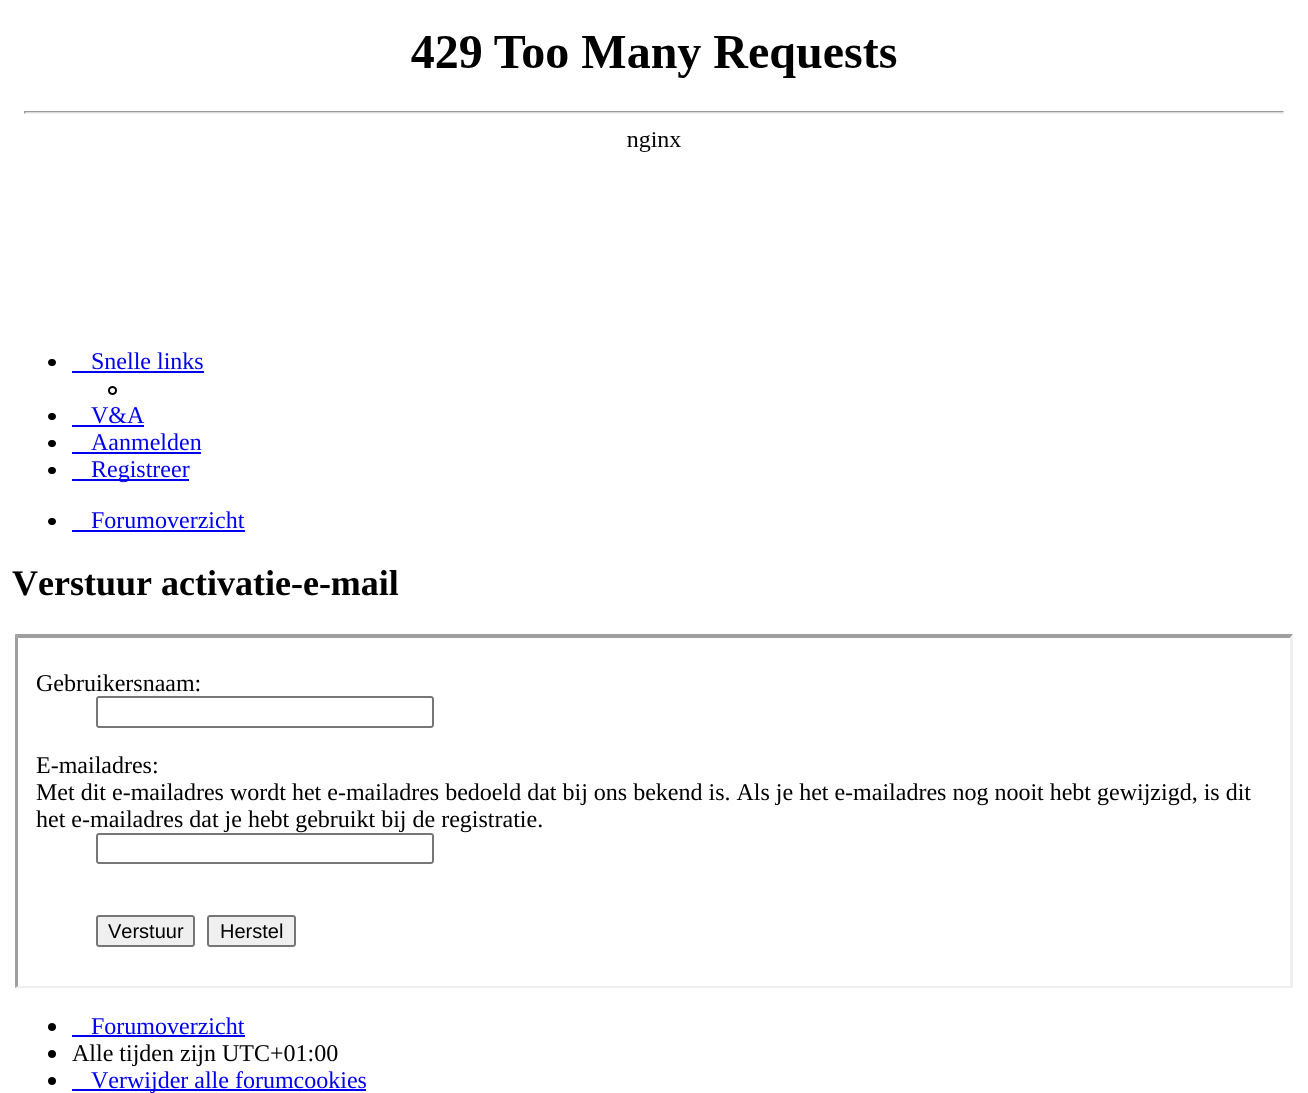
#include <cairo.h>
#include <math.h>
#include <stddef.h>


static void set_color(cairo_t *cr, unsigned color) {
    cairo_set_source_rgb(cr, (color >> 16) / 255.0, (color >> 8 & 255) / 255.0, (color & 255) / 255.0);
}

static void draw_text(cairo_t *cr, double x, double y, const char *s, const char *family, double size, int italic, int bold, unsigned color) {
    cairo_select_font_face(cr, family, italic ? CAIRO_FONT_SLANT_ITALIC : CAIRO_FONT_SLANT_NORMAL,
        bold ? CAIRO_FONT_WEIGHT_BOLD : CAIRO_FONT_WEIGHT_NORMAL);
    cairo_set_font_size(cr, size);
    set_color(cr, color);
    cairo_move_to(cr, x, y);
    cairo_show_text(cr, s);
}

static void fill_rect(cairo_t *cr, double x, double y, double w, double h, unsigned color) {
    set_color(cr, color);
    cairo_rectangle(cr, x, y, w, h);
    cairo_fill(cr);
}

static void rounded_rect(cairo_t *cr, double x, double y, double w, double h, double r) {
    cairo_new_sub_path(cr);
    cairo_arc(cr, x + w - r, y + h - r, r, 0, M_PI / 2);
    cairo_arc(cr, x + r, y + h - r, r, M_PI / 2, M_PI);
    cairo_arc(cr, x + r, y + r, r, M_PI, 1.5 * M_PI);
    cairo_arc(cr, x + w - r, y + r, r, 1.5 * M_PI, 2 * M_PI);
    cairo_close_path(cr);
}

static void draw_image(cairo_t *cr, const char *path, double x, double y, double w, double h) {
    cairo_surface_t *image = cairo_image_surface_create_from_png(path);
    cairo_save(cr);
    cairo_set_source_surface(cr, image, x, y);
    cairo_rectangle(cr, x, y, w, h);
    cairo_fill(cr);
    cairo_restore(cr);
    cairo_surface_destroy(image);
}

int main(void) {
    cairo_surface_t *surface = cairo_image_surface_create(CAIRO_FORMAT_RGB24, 1308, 1093);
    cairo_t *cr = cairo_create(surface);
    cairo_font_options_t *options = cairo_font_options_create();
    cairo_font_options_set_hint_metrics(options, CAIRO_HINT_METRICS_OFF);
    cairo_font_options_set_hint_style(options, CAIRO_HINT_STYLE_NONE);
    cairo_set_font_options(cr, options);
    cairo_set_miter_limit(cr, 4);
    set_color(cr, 0xFFFFFF);
    cairo_paint(cr);
    draw_image(cr, "assets/img1.png", 24, 36, 1260, 116);
    set_color(cr, 0x000000);
    rounded_rect(cr, 48, 359, 8, 7, 3.5);
    cairo_fill(cr);
    draw_text(cr, 91, 369, "Snelle links", "Liberation Serif", 24, 0, 0, 0x0000EE);
    fill_rect(cr, 72, 371, 132, 2, 0x0000EE);
    cairo_new_path(cr);
    cairo_arc(cr, 112.5, 390.5, 3.5, 0, 2 * M_PI);
    set_color(cr, 0x000000);
    cairo_stroke(cr);
    rounded_rect(cr, 48, 413, 8, 7, 3.5);
    cairo_fill(cr);
    draw_text(cr, 91, 423, "V&A", "Liberation Serif", 24, 0, 0, 0x0000EE);
    fill_rect(cr, 72, 425, 72, 2, 0x0000EE);
    set_color(cr, 0x000000);
    rounded_rect(cr, 48, 440, 8, 7, 3.5);
    cairo_fill(cr);
    draw_text(cr, 91, 450, "Aanmelden", "Liberation Serif", 24, 0, 0, 0x0000EE);
    fill_rect(cr, 72, 452, 129, 2, 0x0000EE);
    set_color(cr, 0x000000);
    rounded_rect(cr, 48, 467, 8, 7, 3.5);
    cairo_fill(cr);
    fill_rect(cr, 72, 479, 117, 2, 0x0000EE);
    draw_text(cr, 91, 477, "Registreer", "Liberation Serif", 24, 0, 0, 0x0000EE);
    set_color(cr, 0x000000);
    rounded_rect(cr, 48, 518, 8, 7, 3.5);
    cairo_fill(cr);
    draw_text(cr, 91, 528, "Forumoverzicht", "Liberation Serif", 24, 0, 0, 0x0000EE);
    fill_rect(cr, 72, 530, 173, 2, 0x0000EE);
    draw_text(cr, 12, 595, "Verstuur activatie-e-mail", "Liberation Serif", 36, 0, 1, 0x000000);
    set_color(cr, 0x9F9F9F);
    cairo_new_path(cr);
    cairo_move_to(cr, 15, 634);
    cairo_line_to(cr, 1293, 634);
    cairo_line_to(cr, 1290, 638);
    cairo_line_to(cr, 18, 638);
    cairo_close_path(cr);
    cairo_fill(cr);
    set_color(cr, 0xEFEFEF);
    cairo_new_path(cr);
    cairo_move_to(cr, 1293, 634);
    cairo_line_to(cr, 1293, 988);
    cairo_line_to(cr, 1290, 986);
    cairo_line_to(cr, 1290, 638);
    cairo_close_path(cr);
    cairo_fill(cr);
    cairo_new_path(cr);
    cairo_move_to(cr, 1293, 988);
    cairo_line_to(cr, 15, 988);
    cairo_line_to(cr, 18, 986);
    cairo_line_to(cr, 1290, 986);
    cairo_close_path(cr);
    cairo_fill(cr);
    set_color(cr, 0x9F9F9F);
    cairo_new_path(cr);
    cairo_move_to(cr, 15, 988);
    cairo_line_to(cr, 15, 634);
    cairo_line_to(cr, 18, 638);
    cairo_line_to(cr, 18, 986);
    cairo_close_path(cr);
    cairo_fill(cr);
    draw_text(cr, 36, 691, "Gebruikersnaam:", "Liberation Serif", 24, 0, 0, 0x000000);
    rounded_rect(cr, 97, 697, 336, 30, 2);
    set_color(cr, 0x767676);
    cairo_stroke(cr);
    draw_text(cr, 36, 773, "E-mailadres:", "Liberation Serif", 24, 0, 0, 0x000000);
    draw_text(cr, 36, 800, "Met dit e-mailadres wordt het e-mailadres bedoeld dat bij ons bekend is. Als je het e-mailadres nog nooit hebt gewijzigd, is dit", "Liberation Serif", 24, 0, 0, 0x000000);
    draw_text(cr, 36, 827, "het e-mailadres dat je hebt gebruikt bij de registratie.", "Liberation Serif", 24, 0, 0, 0x000000);
    rounded_rect(cr, 97, 834, 336, 29, 2);
    set_color(cr, 0x767676);
    cairo_stroke(cr);
    set_color(cr, 0xEFEFEF);
    rounded_rect(cr, 97, 916, 97, 30, 2);
    cairo_fill_preserve(cr);
    set_color(cr, 0x767676);
    cairo_stroke(cr);
    draw_text(cr, 108, 938, "Verstuur", "Liberation Sans", 20, 0, 0, 0x000000);
    set_color(cr, 0xEFEFEF);
    rounded_rect(cr, 208, 916, 87, 30, 2);
    cairo_fill_preserve(cr);
    set_color(cr, 0x767676);
    cairo_stroke(cr);
    draw_text(cr, 220, 938, "Herstel", "Liberation Sans", 20, 0, 0, 0x000000);
    cairo_new_path(cr);
    cairo_arc(cr, 52, 1027, 4, 0, 2 * M_PI);
    cairo_fill(cr);
    draw_text(cr, 91, 1034, "Forumoverzicht", "Liberation Serif", 24, 0, 0, 0x0000EE);
    fill_rect(cr, 72, 1035, 173, 2, 0x0000EE);
    set_color(cr, 0x000000);
    cairo_new_path(cr);
    cairo_arc(cr, 52, 1054, 4, 0, 2 * M_PI);
    cairo_fill(cr);
    draw_text(cr, 72, 1061, "Alle tijden zijn UTC+01:00", "Liberation Serif", 24, 0, 0, 0x000000);
    cairo_new_path(cr);
    cairo_arc(cr, 52, 1081, 4, 0, 2 * M_PI);
    cairo_fill(cr);
    fill_rect(cr, 72, 1089, 294, 2, 0x0000EE);
    draw_text(cr, 91, 1088, "Verwijder alle forumcookies", "Liberation Serif", 24, 0, 0, 0x0000EE);
    cairo_surface_write_to_png(surface, "output.png");
    cairo_font_options_destroy(options);
    cairo_destroy(cr);
    cairo_surface_destroy(surface);
    return 0;
}
